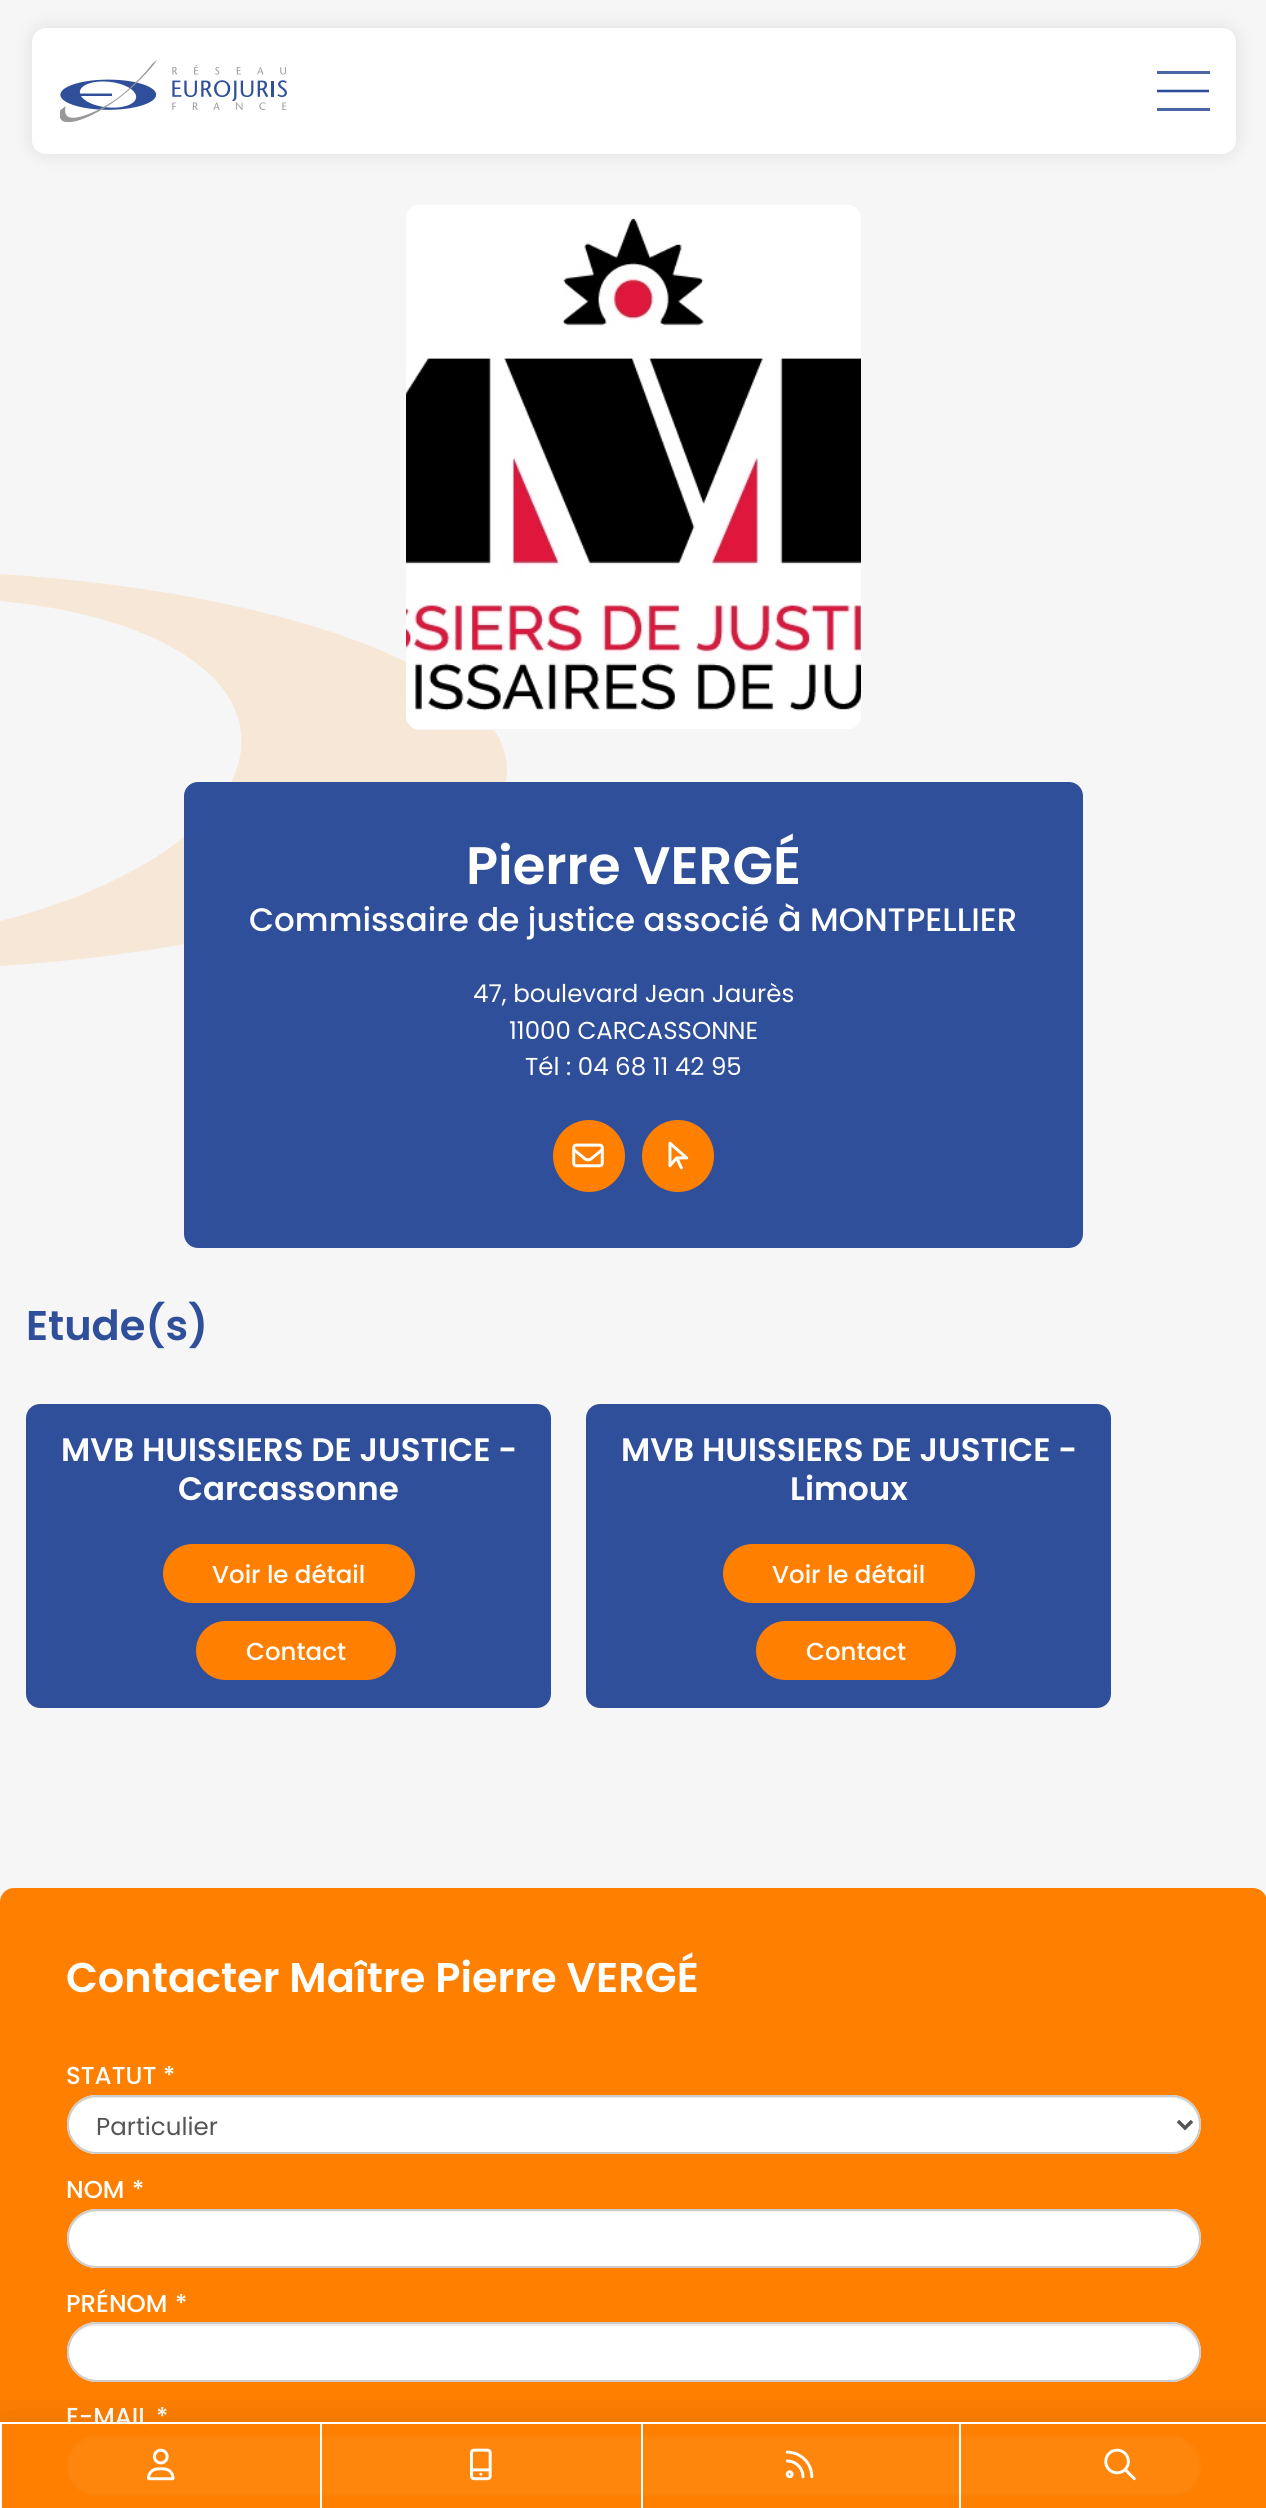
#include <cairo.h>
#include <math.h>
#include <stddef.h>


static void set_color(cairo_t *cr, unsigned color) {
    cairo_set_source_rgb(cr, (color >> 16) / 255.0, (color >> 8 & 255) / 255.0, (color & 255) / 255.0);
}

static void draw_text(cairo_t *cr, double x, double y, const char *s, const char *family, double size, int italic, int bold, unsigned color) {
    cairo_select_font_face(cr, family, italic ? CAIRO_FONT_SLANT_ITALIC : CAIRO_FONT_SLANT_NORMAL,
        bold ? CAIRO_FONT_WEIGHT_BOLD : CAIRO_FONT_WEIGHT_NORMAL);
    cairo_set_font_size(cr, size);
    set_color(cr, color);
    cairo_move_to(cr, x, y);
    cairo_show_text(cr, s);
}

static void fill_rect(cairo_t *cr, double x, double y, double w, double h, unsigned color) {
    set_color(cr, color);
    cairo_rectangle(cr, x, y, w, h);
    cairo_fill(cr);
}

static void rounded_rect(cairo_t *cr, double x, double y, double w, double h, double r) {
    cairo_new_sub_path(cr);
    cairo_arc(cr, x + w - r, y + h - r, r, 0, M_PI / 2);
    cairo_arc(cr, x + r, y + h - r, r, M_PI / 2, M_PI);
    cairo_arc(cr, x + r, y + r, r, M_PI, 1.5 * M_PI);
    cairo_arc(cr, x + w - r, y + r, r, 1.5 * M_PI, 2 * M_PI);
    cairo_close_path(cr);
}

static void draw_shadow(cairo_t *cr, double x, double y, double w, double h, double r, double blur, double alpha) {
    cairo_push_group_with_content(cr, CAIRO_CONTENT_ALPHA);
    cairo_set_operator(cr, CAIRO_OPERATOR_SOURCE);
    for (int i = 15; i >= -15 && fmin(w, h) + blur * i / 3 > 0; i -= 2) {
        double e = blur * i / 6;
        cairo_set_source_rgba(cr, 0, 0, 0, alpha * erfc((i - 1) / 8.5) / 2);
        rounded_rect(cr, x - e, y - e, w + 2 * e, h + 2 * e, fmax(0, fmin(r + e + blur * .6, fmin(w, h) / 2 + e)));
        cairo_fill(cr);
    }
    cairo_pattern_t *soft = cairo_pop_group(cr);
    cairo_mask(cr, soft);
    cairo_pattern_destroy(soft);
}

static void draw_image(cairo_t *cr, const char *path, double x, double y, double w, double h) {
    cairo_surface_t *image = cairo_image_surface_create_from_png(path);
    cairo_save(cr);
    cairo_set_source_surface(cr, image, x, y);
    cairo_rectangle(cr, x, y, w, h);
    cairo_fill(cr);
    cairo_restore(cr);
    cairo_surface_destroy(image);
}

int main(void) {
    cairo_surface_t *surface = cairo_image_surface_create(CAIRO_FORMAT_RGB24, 1266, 2508);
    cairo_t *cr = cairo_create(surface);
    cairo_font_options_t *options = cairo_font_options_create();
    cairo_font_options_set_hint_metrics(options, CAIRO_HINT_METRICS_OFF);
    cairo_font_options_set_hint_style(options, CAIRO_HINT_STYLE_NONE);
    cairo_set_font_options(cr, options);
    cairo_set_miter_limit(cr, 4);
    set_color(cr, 0xF6F6F6);
    cairo_paint(cr);
    set_color(cr, 0x000000);
    draw_shadow(cr, 32, 28, 1204, 126, 14, 9, 0.1);
    set_color(cr, 0xFFFFFF);
    rounded_rect(cr, 32, 28, 1204, 126, 14);
    cairo_fill(cr);
    draw_image(cr, "assets/img1.png", 60, 60, 227, 62);
    fill_rect(cr, 1157, 71, 53, 3, 0x4B66A7);
    cairo_new_path(cr);
    cairo_move_to(cr, 1157, 91);
    cairo_line_to(cr, 1209, 91);
    set_color(cr, 0x2F4F9A);
    cairo_set_line_width(cr, 2.6);
    cairo_stroke(cr);
    fill_rect(cr, 1157, 108, 53, 3, 0x4B66A7);
    set_color(cr, 0xF7E7D6);
    cairo_new_path(cr);
    cairo_move_to(cr, -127, 970);
    cairo_curve_to(cr, -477, 970, -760, 880, -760, 770);
    cairo_curve_to(cr, -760, 660, -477, 570, -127, 570);
    cairo_curve_to(cr, 223, 570, 507, 660, 507, 770);
    cairo_curve_to(cr, 507, 880, 223, 970, -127, 970);
    cairo_move_to(cr, 241, 733);
    cairo_curve_to(cr, 232, 640, 57, 581, -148, 603);
    cairo_curve_to(cr, -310, 620, -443, 681, -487, 753);
    cairo_line_to(cr, -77, 753);
    cairo_line_to(cr, -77, 786);
    cairo_line_to(cr, -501, 786);
    cairo_curve_to(cr, -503, 794, -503, 802, -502, 811);
    cairo_curve_to(cr, -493, 904, -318, 962, -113, 941);
    cairo_curve_to(cr, 92, 920, 251, 826, 241, 733);
    cairo_fill(cr);
    set_color(cr, 0xEDEDED);
    rounded_rect(cr, 406, 205, 455, 525, 14);
    cairo_fill(cr);
    draw_image(cr, "assets/img2.png", 406, 205, 455, 525);
    set_color(cr, 0x2F4F9A);
    rounded_rect(cr, 184, 782, 899, 466, 14);
    cairo_fill(cr);
    draw_text(cr, 466, 884, "Pierre VERGÉ", "Poppins SemiBold", 52.75, 0, 0, 0xFFFFFF);
    draw_text(cr, 249, 931, "Commissaire de justice associé", "Poppins Medium", 32.5, 0, 0, 0xFFFFFF);
    draw_text(cr, 778, 931, "à", "Poppins Medium", 35, 0, 0, 0xFFFFFF);
    draw_text(cr, 810, 931, "MONTPELLIER", "Poppins Medium", 32.5, 0, 0, 0xFFFFFF);
    draw_text(cr, 473, 1002, "47, boulevard Jean Jaurès", "Poppins", 24.5, 0, 0, 0xFFFFFF);
    draw_text(cr, 509, 1039, "11000 CARCASSONNE", "Poppins", 24.5, 0, 0, 0xFFFFFF);
    draw_text(cr, 525, 1075, "Tél : 04 68 11 42 95", "Poppins", 24.5, 0, 0, 0xFFFFFF);
    set_color(cr, 0xFF8000);
    cairo_new_path(cr);
    cairo_arc(cr, 589, 1156, 36, 0, 2 * M_PI);
    cairo_fill(cr);
    draw_image(cr, "assets/img3.png", 572, 1143, 32, 25);
    cairo_arc(cr, 678, 1156, 36, 0, 2 * M_PI);
    cairo_fill(cr);
    draw_image(cr, "assets/img4.png", 668, 1141, 21, 29);
    draw_text(cr, 26, 1340, "Etude(s)", "Poppins SemiBold", 41.5, 0, 0, 0x2F4F9A);
    rounded_rect(cr, 26, 1404, 525, 304, 14);
    cairo_fill(cr);
    draw_text(cr, 61, 1461, "MVB HUISSIERS DE JUSTICE -", "Poppins SemiBold", 32.5, 0, 0, 0xFFFFFF);
    draw_text(cr, 178, 1500, "Carcassonne", "Poppins SemiBold", 32.5, 0, 0, 0xFFFFFF);
    set_color(cr, 0xFF8000);
    rounded_rect(cr, 165, 1546, 248, 55, 27.5);
    cairo_fill_preserve(cr);
    cairo_set_line_width(cr, 4);
    cairo_stroke(cr);
    draw_text(cr, 212, 1583, "Voir le détail", "Poppins Medium", 24.5, 0, 0, 0xFFFFFF);
    set_color(cr, 0xFF8000);
    rounded_rect(cr, 198, 1623, 196, 55, 27.5);
    cairo_fill_preserve(cr);
    cairo_stroke(cr);
    draw_text(cr, 246, 1660, "Contact", "Poppins Medium", 24.5, 0, 0, 0xFFFFFF);
    set_color(cr, 0x2F4F9A);
    rounded_rect(cr, 586, 1404, 525, 304, 14);
    cairo_fill(cr);
    draw_text(cr, 621, 1461, "MVB HUISSIERS DE JUSTICE -", "Poppins SemiBold", 32.5, 0, 0, 0xFFFFFF);
    draw_text(cr, 790, 1500, "Limoux", "Poppins SemiBold", 32.5, 0, 0, 0xFFFFFF);
    set_color(cr, 0xFF8000);
    rounded_rect(cr, 725, 1546, 248, 55, 27.5);
    cairo_fill_preserve(cr);
    cairo_stroke(cr);
    draw_text(cr, 772, 1583, "Voir le détail", "Poppins Medium", 24.5, 0, 0, 0xFFFFFF);
    set_color(cr, 0xFF8000);
    rounded_rect(cr, 758, 1623, 196, 55, 27.5);
    cairo_fill_preserve(cr);
    cairo_stroke(cr);
    draw_text(cr, 806, 1660, "Contact", "Poppins Medium", 24.5, 0, 0, 0xFFFFFF);
    set_color(cr, 0xFF8000);
    rounded_rect(cr, 0, 1888, 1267, 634, 14);
    cairo_fill(cr);
    draw_text(cr, 66, 1992, "Contacter Maître Pierre VERGÉ", "Poppins SemiBold", 41.5, 0, 0, 0xFFFFFF);
    draw_text(cr, 66, 2084, "STATUT", "Poppins Medium", 24.5, 0, 0, 0xFFFFFF);
    draw_text(cr, 163, 2084, "*", "Poppins Medium", 24.5, 0, 0, 0xFFFFFF);
    rounded_rect(cr, 67, 2095, 1134, 59, 29.5);
    cairo_fill(cr);
    set_color(cr, 0xECECEC);
    cairo_new_path(cr);
    cairo_move_to(cr, 96, 2098);
    cairo_line_to(cr, 1171, 2098);
    cairo_curve_to(cr, 1186, 2098, 1199, 2111, 1199, 2126);
    cairo_line_to(cr, 1199, 2125);
    cairo_curve_to(cr, 1199, 2110, 1186, 2097, 1171, 2097);
    cairo_line_to(cr, 96, 2097);
    cairo_curve_to(cr, 81, 2097, 68, 2110, 68, 2125);
    cairo_line_to(cr, 68, 2126);
    cairo_curve_to(cr, 68, 2111, 81, 2098, 96, 2098);
    cairo_close_path(cr);
    cairo_fill(cr);
    rounded_rect(cr, 68, 2096, 1132, 57, 28.5);
    set_color(cr, 0xCCCCCC);
    cairo_set_line_width(cr, 2);
    cairo_stroke(cr);
    cairo_new_path(cr);
    cairo_move_to(cr, 1178, 2121);
    cairo_line_to(cr, 1185, 2128);
    cairo_line_to(cr, 1192, 2121);
    set_color(cr, 0x555555);
    cairo_set_line_width(cr, 3.5);
    cairo_stroke(cr);
    draw_text(cr, 96, 2135, "Particulier", "Poppins", 24.5, 0, 0, 0x555555);
    draw_text(cr, 66, 2198, "NOM", "Poppins Medium", 24.5, 0, 0, 0xFFFFFF);
    draw_text(cr, 132, 2198, "*", "Poppins Medium", 24.5, 0, 0, 0xFFFFFF);
    rounded_rect(cr, 67, 2209, 1134, 59, 29.5);
    cairo_fill(cr);
    set_color(cr, 0xECECEC);
    cairo_new_path(cr);
    cairo_move_to(cr, 96, 2212);
    cairo_line_to(cr, 1171, 2212);
    cairo_curve_to(cr, 1186, 2212, 1198, 2224, 1199, 2239);
    cairo_line_to(cr, 1199, 2238);
    cairo_curve_to(cr, 1199, 2223, 1186, 2210, 1171, 2210);
    cairo_line_to(cr, 96, 2210);
    cairo_curve_to(cr, 81, 2210, 68, 2223, 68, 2238);
    cairo_line_to(cr, 68, 2239);
    cairo_curve_to(cr, 69, 2224, 81, 2212, 96, 2212);
    cairo_close_path(cr);
    cairo_fill(cr);
    rounded_rect(cr, 68, 2210, 1132, 57, 28.5);
    set_color(cr, 0xCCCCCC);
    cairo_set_line_width(cr, 2);
    cairo_stroke(cr);
    draw_text(cr, 66, 2312, "PRÉNOM", "Poppins Medium", 24.5, 0, 0, 0xFFFFFF);
    draw_text(cr, 175, 2312, "*", "Poppins Medium", 24.5, 0, 0, 0xFFFFFF);
    rounded_rect(cr, 67, 2322, 1134, 60, 30);
    cairo_fill(cr);
    set_color(cr, 0xECECEC);
    cairo_new_path(cr);
    cairo_move_to(cr, 96, 2326);
    cairo_line_to(cr, 1171, 2326);
    cairo_curve_to(cr, 1186, 2326, 1198, 2337, 1199, 2353);
    cairo_line_to(cr, 1199, 2352);
    cairo_curve_to(cr, 1199, 2337, 1186, 2324, 1171, 2324);
    cairo_line_to(cr, 96, 2324);
    cairo_curve_to(cr, 81, 2324, 68, 2337, 68, 2352);
    cairo_line_to(cr, 68, 2353);
    cairo_curve_to(cr, 69, 2337, 81, 2326, 96, 2326);
    cairo_close_path(cr);
    cairo_fill(cr);
    rounded_rect(cr, 68, 2323, 1132, 58, 29);
    set_color(cr, 0xCCCCCC);
    cairo_stroke(cr);
    draw_text(cr, 66, 2425, "E-MAIL", "Poppins Medium", 24.5, 0, 0, 0xFFFFFF);
    draw_text(cr, 156, 2425, "*", "Poppins Medium", 24.5, 0, 0, 0xFFFFFF);
    rounded_rect(cr, 67, 2436, 1134, 60, 30);
    cairo_fill(cr);
    set_color(cr, 0xECECEC);
    cairo_new_path(cr);
    cairo_move_to(cr, 96, 2440);
    cairo_line_to(cr, 1171, 2440);
    cairo_curve_to(cr, 1186, 2440, 1198, 2451, 1199, 2467);
    cairo_line_to(cr, 1199, 2466);
    cairo_curve_to(cr, 1199, 2451, 1186, 2438, 1171, 2438);
    cairo_line_to(cr, 96, 2438);
    cairo_curve_to(cr, 81, 2438, 68, 2451, 68, 2466);
    cairo_line_to(cr, 68, 2467);
    cairo_curve_to(cr, 69, 2451, 81, 2440, 96, 2440);
    cairo_close_path(cr);
    cairo_fill(cr);
    rounded_rect(cr, 68, 2437, 1132, 58, 29);
    set_color(cr, 0xCCCCCC);
    cairo_stroke(cr);
    cairo_save(cr);
    cairo_rectangle(cr, 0, 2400, 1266, 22);
    cairo_clip(cr);
    set_color(cr, 0x000000);
    draw_shadow(cr, 0, 2422, 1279, 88, 0, 26, 0.1);
    cairo_restore(cr);
    cairo_set_source_rgba(cr, 1, 0.502, 0, 0.95);
    cairo_rectangle(cr, 67, 2424, 1134, 72);
    cairo_fill(cr);
    cairo_rectangle(cr, 1, 2423, 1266, 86);
    set_color(cr, 0xFFFFFF);
    cairo_stroke(cr);
    draw_image(cr, "assets/img5.png", 147, 2448, 28, 33);
    fill_rect(cr, 320, 2424, 2, 84, 0xFFFFFF);
    draw_image(cr, "assets/img6.png", 470, 2448, 22, 33);
    fill_rect(cr, 641, 2424, 2, 84, 0xFFFFFF);
    draw_image(cr, "assets/img7.png", 785, 2450, 29, 29);
    fill_rect(cr, 959, 2424, 2, 84, 0xFFFFFF);
    draw_image(cr, "assets/img8.png", 1104, 2448, 32, 33);
    cairo_surface_write_to_png(surface, "output.png");
    cairo_font_options_destroy(options);
    cairo_destroy(cr);
    cairo_surface_destroy(surface);
    return 0;
}
